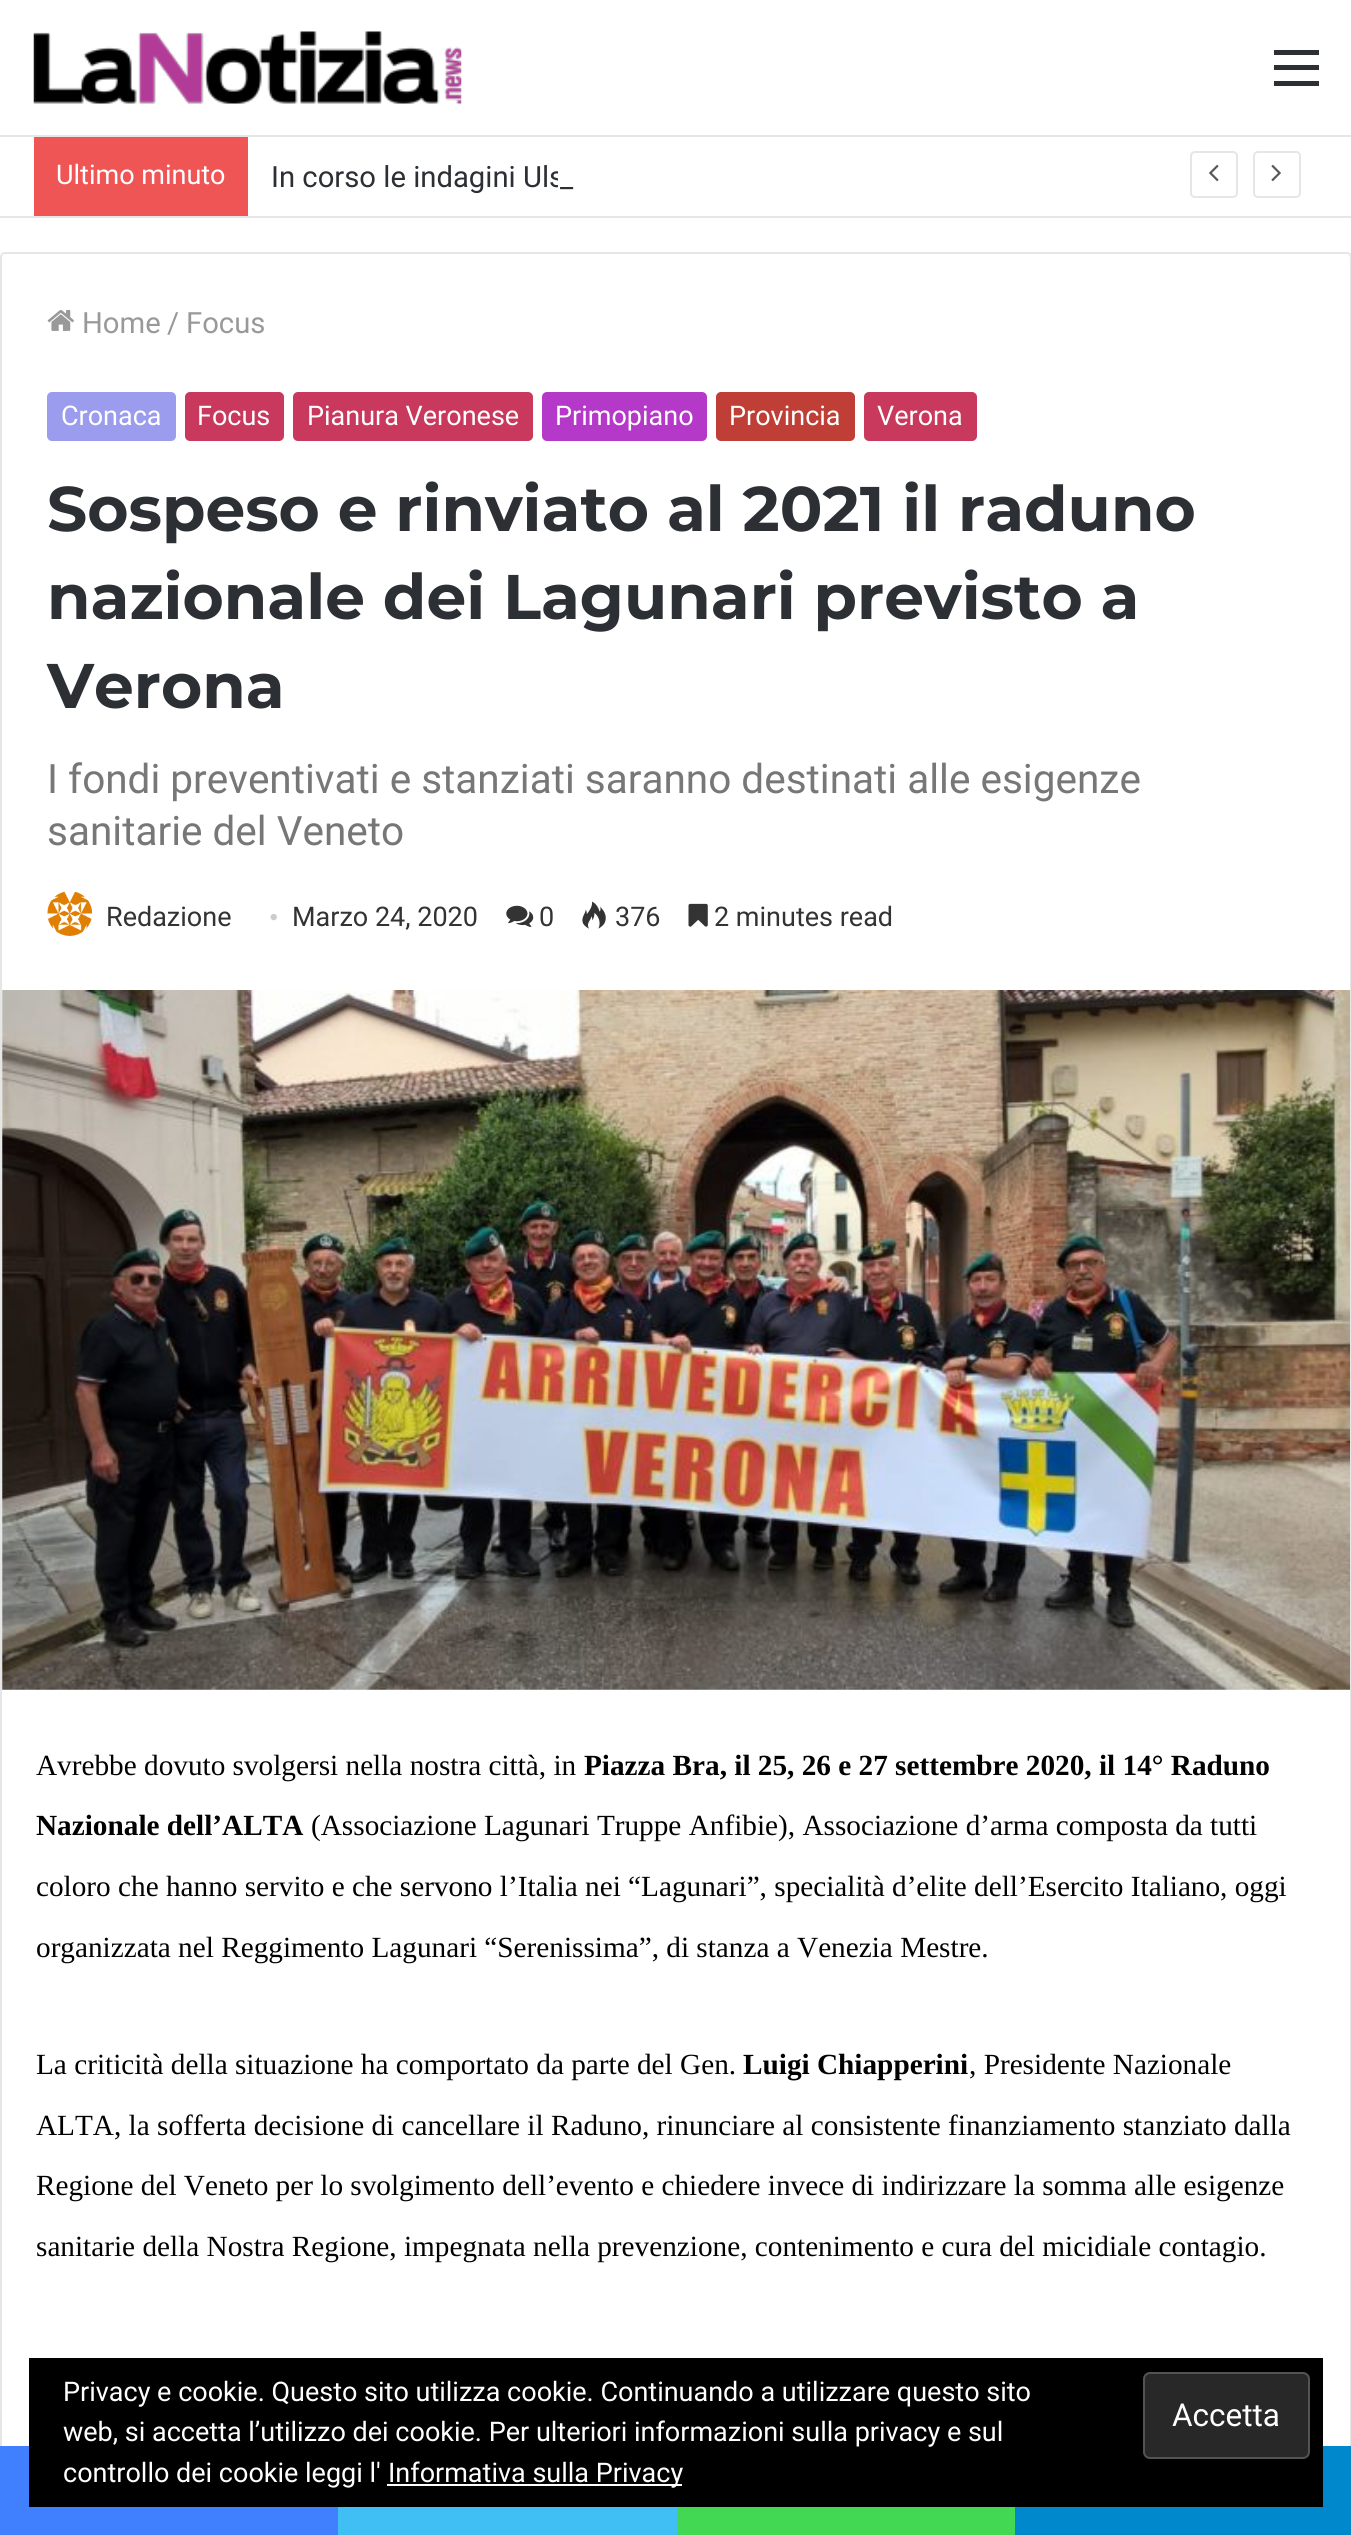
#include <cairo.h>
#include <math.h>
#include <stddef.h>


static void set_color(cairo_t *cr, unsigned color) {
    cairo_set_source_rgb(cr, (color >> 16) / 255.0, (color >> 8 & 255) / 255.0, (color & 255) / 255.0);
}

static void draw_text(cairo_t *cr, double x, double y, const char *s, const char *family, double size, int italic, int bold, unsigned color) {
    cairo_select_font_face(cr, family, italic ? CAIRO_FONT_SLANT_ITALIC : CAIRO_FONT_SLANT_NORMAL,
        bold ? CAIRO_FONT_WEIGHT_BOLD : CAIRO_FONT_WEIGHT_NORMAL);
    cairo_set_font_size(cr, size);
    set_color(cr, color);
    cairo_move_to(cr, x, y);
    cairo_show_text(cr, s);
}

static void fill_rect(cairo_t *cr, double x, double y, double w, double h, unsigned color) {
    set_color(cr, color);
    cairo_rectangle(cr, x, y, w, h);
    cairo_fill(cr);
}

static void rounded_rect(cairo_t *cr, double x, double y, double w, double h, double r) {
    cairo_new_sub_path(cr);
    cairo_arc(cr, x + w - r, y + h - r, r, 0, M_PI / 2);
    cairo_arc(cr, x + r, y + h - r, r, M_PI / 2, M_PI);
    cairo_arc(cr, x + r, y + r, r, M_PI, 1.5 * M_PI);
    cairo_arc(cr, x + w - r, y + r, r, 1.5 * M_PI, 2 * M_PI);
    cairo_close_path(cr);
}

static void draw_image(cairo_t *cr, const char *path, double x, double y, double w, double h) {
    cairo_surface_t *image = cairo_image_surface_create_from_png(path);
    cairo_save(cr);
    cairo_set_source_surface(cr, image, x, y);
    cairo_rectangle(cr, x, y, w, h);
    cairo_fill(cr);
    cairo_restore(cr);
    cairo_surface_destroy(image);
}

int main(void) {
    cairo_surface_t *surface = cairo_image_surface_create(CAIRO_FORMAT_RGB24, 1351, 2535);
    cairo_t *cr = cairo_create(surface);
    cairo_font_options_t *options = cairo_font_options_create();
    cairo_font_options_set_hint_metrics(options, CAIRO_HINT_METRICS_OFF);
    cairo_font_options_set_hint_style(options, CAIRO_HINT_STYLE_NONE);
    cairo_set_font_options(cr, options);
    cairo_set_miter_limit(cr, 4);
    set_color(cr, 0xFFFFFF);
    cairo_paint(cr);
    draw_image(cr, "assets/img1.png", 33, 31, 429, 73);
    fill_rect(cr, 1274, 65, 45, 5, 0x2C2F34);
    fill_rect(cr, 1274, 50, 45, 5, 0x2C2F34);
    fill_rect(cr, 1274, 81, 45, 5, 0x2C2F34);
    fill_rect(cr, 0, 135, 1351, 2, 0xE6E6E6);
    fill_rect(cr, 0, 216, 1351, 2, 0xE6E6E6);
    fill_rect(cr, 34, 137, 214, 79, 0xF05555);
    draw_text(cr, 56, 184, "Ultimo minuto", "Roboto", 27, 0, 0, 0xFFFFFF);
    draw_text(cr, 271, 187, "In corso le indagini Uls", "Roboto", 29.25, 0, 0, 0x2C2F34);
    fill_rect(cr, 558, 171, 5, 17, 0xFFFFFF);
    draw_text(cr, 560, 187, "_", "Roboto", 29.25, 0, 0, 0x2C2F34);
    rounded_rect(cr, 1191, 152, 46, 45, 4);
    set_color(cr, 0xE6E6E6);
    cairo_stroke(cr);
    draw_image(cr, "assets/img2.png", 1209, 164, 10, 18);
    rounded_rect(cr, 1254, 152, 46, 45, 4);
    cairo_stroke(cr);
    draw_image(cr, "assets/img3.png", 1271, 164, 10, 18);
    rounded_rect(cr, 1, 253, 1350, 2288, 4);
    cairo_stroke(cr);
    draw_image(cr, "assets/img4.png", 47, 310, 27, 21);
    draw_text(cr, 82, 333, "Home", "Roboto", 29.25, 0, 0, 0x999999);
    draw_text(cr, 167, 333, "/", "Roboto", 29.25, 0, 0, 0x999999);
    draw_text(cr, 186, 333, "Focus", "Roboto", 29.25, 0, 0, 0x999999);
    set_color(cr, 0x9C9CEF);
    rounded_rect(cr, 47, 392, 129, 49, 5);
    cairo_fill(cr);
    draw_text(cr, 61, 425, "Cronaca", "Roboto", 27, 0, 0, 0xFFFFFF);
    set_color(cr, 0xC9395E);
    rounded_rect(cr, 185, 392, 99, 49, 5);
    cairo_fill(cr);
    draw_text(cr, 197, 425, "Focus", "Roboto", 27, 0, 0, 0xFFFFFF);
    set_color(cr, 0xC9395E);
    rounded_rect(cr, 293, 392, 240, 49, 5);
    cairo_fill(cr);
    draw_text(cr, 307, 425, "Pianura Veronese", "Roboto", 27, 0, 0, 0xFFFFFF);
    set_color(cr, 0xB539C9);
    rounded_rect(cr, 542, 392, 165, 49, 5);
    cairo_fill(cr);
    draw_text(cr, 555, 425, "Primopiano", "Roboto", 27, 0, 0, 0xFFFFFF);
    set_color(cr, 0xBF3F36);
    rounded_rect(cr, 716, 392, 139, 49, 5);
    cairo_fill(cr);
    draw_text(cr, 729, 425, "Provincia", "Roboto", 27, 0, 0, 0xFFFFFF);
    set_color(cr, 0xC9395E);
    rounded_rect(cr, 864, 392, 113, 49, 5);
    cairo_fill(cr);
    draw_text(cr, 877, 425, "Verona", "Roboto", 27, 0, 0, 0xFFFFFF);
    draw_text(cr, 47, 531, "Sospeso e rinviato al 2021 il raduno", "Montserrat", 63, 0, 1, 0x2C2F34);
    draw_text(cr, 47, 619, "nazionale dei Lagunari previsto a", "Montserrat", 63, 0, 1, 0x2C2F34);
    draw_text(cr, 47, 708, "Verona", "Montserrat", 63, 0, 1, 0x2C2F34);
    draw_text(cr, 47, 793, "I fondi preventivati e stanziati saranno destinati alle esigenze", "Roboto", 40.5, 0, 0, 0x777777);
    draw_text(cr, 47, 845, "sanitarie del Veneto", "Roboto", 40.5, 0, 0, 0x777777);
    draw_image(cr, "assets/img5.png", 47, 891, 46, 45);
    draw_text(cr, 106, 926, "Redazione", "Roboto", 27, 0, 0, 0x333333);
    draw_text(cr, 269, 926, "•", "Liberation Serif", 27, 0, 0, 0xCCCCCC);
    draw_text(cr, 292, 926, "Marzo 24, 2020", "Roboto", 27, 0, 0, 0x333333);
    draw_image(cr, "assets/img6.png", 506, 905, 28, 22);
    draw_text(cr, 539, 926, "0", "Roboto", 27, 0, 0, 0x333333);
    draw_image(cr, "assets/img7.png", 582, 901, 24, 28);
    draw_text(cr, 615, 926, "376", "Roboto", 27, 0, 0, 0x333333);
    draw_image(cr, "assets/img8.png", 688, 903, 20, 24);
    draw_text(cr, 714, 926, "2 minutes read", "Roboto", 27, 0, 0, 0x333333);
    draw_image(cr, "assets/img9.png", 2, 990, 1348, 700);
    draw_text(cr, 36, 1775, "Avrebbe dovuto svolgersi nella nostra città, in", "Liberation Serif", 29.25, 0, 0, 0x000000);
    draw_text(cr, 584, 1775, "Piazza Bra, il 25, 26 e 27 settembre 2020, il 14° Raduno", "Liberation Serif", 29.25, 0, 1, 0x000000);
    draw_text(cr, 36, 1835, "Nazionale dell’ALTA", "Liberation Serif", 29.25, 0, 1, 0x000000);
    draw_text(cr, 311, 1835, "(Associazione Lagunari Truppe Anfibie), Associazione d’arma composta da tutti", "Liberation Serif", 29.25, 0, 0, 0x000000);
    draw_text(cr, 36, 1896, "coloro che hanno servito e che servono l’Italia nei “Lagunari”, specialità d’elite dell’Esercito Italiano, oggi", "Liberation Serif", 29.25, 0, 0, 0x000000);
    draw_text(cr, 36, 1957, "organizzata nel Reggimento Lagunari “Serenissima”, di stanza a Venezia Mestre.", "Liberation Serif", 29.25, 0, 0, 0x000000);
    draw_text(cr, 36, 2074, "La criticità della situazione ha comportato da parte del Gen.", "Liberation Serif", 29.25, 0, 0, 0x000000);
    draw_text(cr, 743, 2074, "Luigi Chiapperini", "Liberation Serif", 29.25, 0, 1, 0x000000);
    draw_text(cr, 969, 2074, ", Presidente Nazionale", "Liberation Serif", 29.25, 0, 0, 0x000000);
    draw_text(cr, 36, 2135, "ALTA, la sofferta decisione di cancellare il Raduno, rinunciare al consistente finanziamento stanziato dalla", "Liberation Serif", 29.25, 0, 0, 0x000000);
    draw_text(cr, 36, 2195, "Regione del Veneto per lo svolgimento dell’evento e chiedere invece di indirizzare la somma alle esigenze", "Liberation Serif", 29.25, 0, 0, 0x000000);
    draw_text(cr, 36, 2256, "sanitarie della Nostra Regione, impegnata nella prevenzione, contenimento e cura del micidiale contagio.", "Liberation Serif", 29.25, 0, 0, 0x000000);
    fill_rect(cr, 0, 2446, 338, 89, 0x4080FF);
    fill_rect(cr, 338, 2507, 339, 28, 0x40BFF5);
    fill_rect(cr, 677, 2507, 338, 28, 0x43D854);
    fill_rect(cr, 1015, 2446, 336, 89, 0x0088CC);
    fill_rect(cr, 29, 2358, 1294, 149, 0x000000);
    draw_text(cr, 63, 2401, "Privacy e cookie. Questo sito utilizza cookie. Continuando a utilizzare questo sito", "Roboto", 27, 0, 0, 0xFFFFFF);
    set_color(cr, 0x282828);
    rounded_rect(cr, 1144, 2373, 165, 85, 6);
    cairo_fill_preserve(cr);
    set_color(cr, 0x535353);
    cairo_stroke(cr);
    draw_text(cr, 1172, 2426, "Accetta", "Roboto", 31.5, 0, 0, 0xFFFFFF);
    draw_text(cr, 63, 2441, "web, si accetta l’utilizzo dei cookie. Per ulteriori informazioni sulla privacy e sul", "Roboto", 27, 0, 0, 0xFFFFFF);
    draw_text(cr, 63, 2482, "controllo dei cookie leggi l'", "Roboto", 27, 0, 0, 0xFFFFFF);
    fill_rect(cr, 387, 2484, 295, 2, 0xFFFFFF);
    draw_text(cr, 388, 2482, "Informativa sulla Privacy", "Roboto", 27, 0, 0, 0xFFFFFF);
    cairo_surface_write_to_png(surface, "output.png");
    cairo_font_options_destroy(options);
    cairo_destroy(cr);
    cairo_surface_destroy(surface);
    return 0;
}
